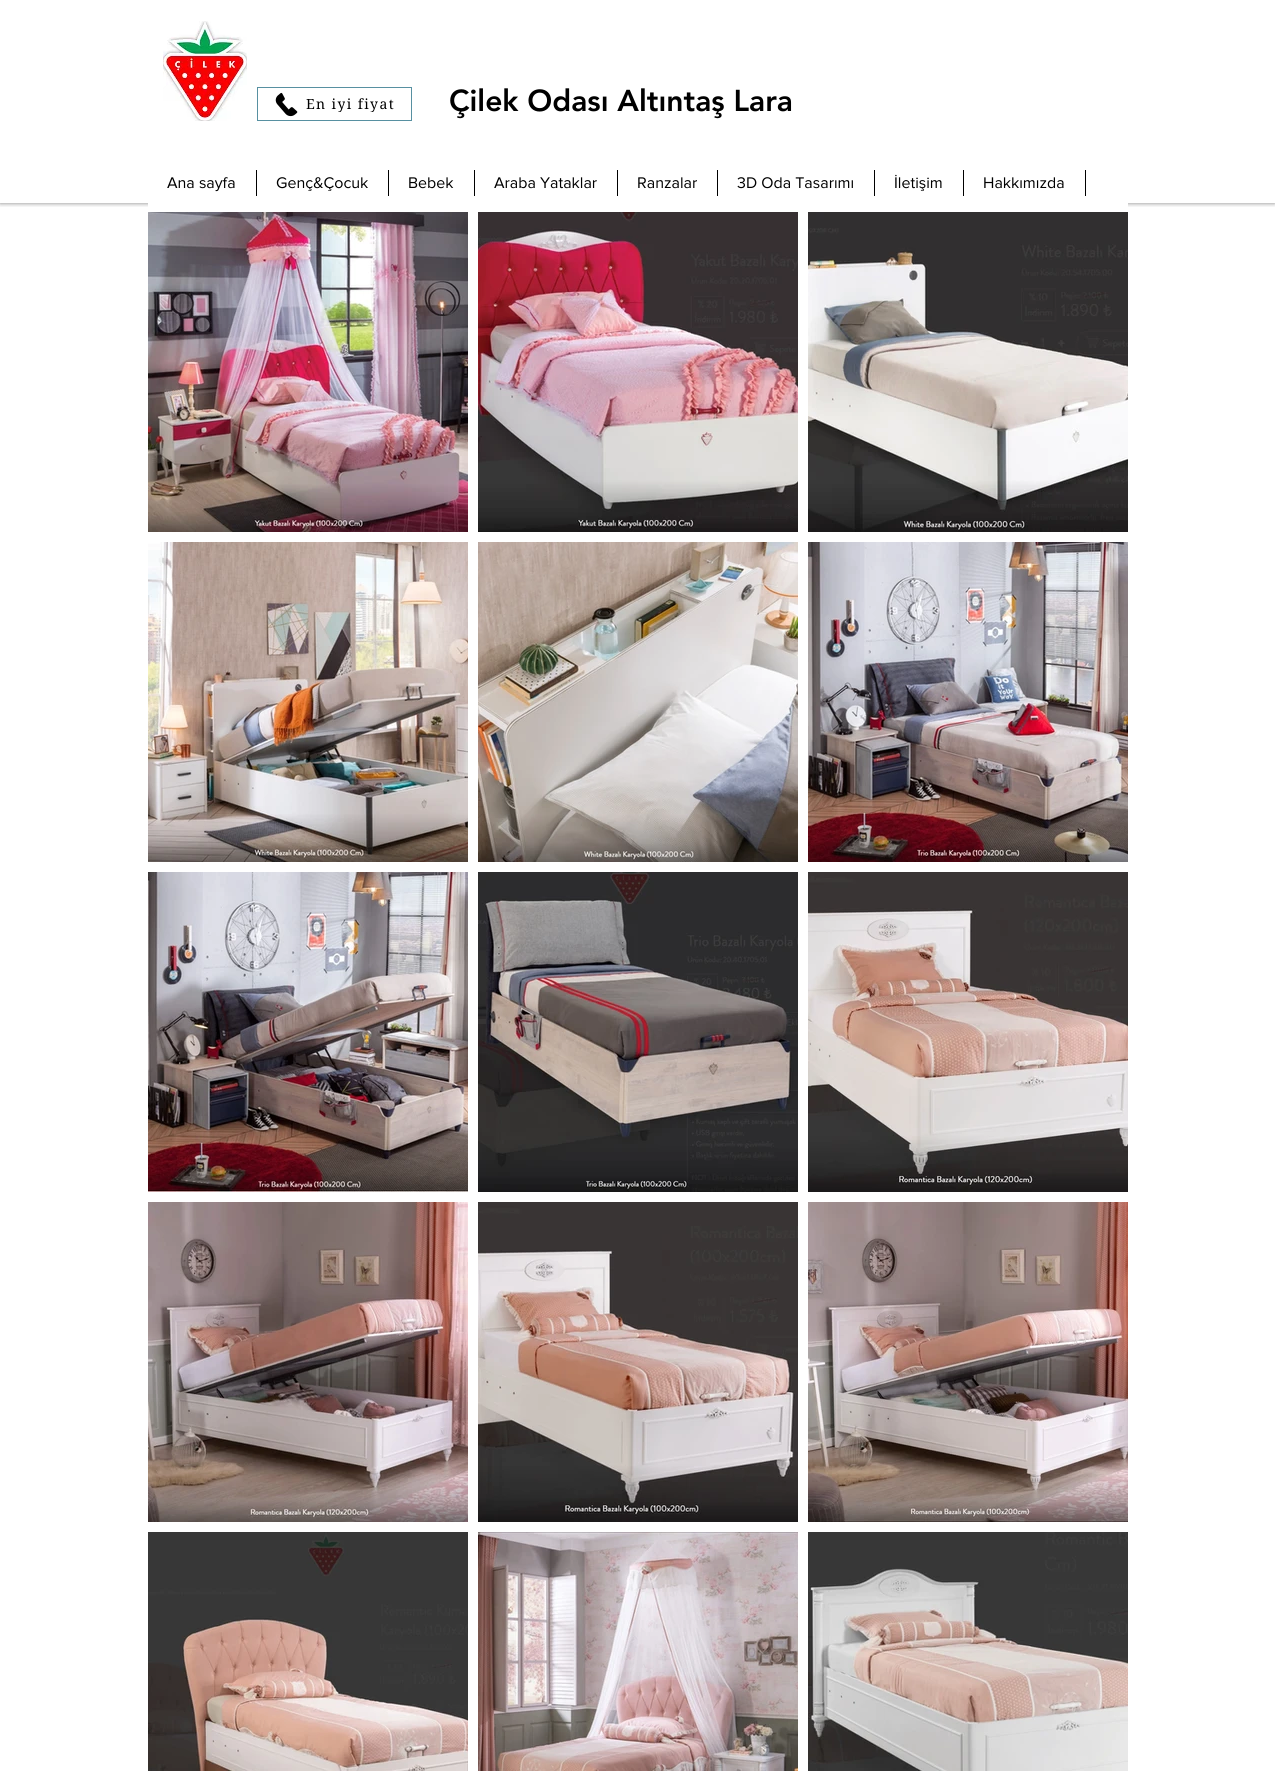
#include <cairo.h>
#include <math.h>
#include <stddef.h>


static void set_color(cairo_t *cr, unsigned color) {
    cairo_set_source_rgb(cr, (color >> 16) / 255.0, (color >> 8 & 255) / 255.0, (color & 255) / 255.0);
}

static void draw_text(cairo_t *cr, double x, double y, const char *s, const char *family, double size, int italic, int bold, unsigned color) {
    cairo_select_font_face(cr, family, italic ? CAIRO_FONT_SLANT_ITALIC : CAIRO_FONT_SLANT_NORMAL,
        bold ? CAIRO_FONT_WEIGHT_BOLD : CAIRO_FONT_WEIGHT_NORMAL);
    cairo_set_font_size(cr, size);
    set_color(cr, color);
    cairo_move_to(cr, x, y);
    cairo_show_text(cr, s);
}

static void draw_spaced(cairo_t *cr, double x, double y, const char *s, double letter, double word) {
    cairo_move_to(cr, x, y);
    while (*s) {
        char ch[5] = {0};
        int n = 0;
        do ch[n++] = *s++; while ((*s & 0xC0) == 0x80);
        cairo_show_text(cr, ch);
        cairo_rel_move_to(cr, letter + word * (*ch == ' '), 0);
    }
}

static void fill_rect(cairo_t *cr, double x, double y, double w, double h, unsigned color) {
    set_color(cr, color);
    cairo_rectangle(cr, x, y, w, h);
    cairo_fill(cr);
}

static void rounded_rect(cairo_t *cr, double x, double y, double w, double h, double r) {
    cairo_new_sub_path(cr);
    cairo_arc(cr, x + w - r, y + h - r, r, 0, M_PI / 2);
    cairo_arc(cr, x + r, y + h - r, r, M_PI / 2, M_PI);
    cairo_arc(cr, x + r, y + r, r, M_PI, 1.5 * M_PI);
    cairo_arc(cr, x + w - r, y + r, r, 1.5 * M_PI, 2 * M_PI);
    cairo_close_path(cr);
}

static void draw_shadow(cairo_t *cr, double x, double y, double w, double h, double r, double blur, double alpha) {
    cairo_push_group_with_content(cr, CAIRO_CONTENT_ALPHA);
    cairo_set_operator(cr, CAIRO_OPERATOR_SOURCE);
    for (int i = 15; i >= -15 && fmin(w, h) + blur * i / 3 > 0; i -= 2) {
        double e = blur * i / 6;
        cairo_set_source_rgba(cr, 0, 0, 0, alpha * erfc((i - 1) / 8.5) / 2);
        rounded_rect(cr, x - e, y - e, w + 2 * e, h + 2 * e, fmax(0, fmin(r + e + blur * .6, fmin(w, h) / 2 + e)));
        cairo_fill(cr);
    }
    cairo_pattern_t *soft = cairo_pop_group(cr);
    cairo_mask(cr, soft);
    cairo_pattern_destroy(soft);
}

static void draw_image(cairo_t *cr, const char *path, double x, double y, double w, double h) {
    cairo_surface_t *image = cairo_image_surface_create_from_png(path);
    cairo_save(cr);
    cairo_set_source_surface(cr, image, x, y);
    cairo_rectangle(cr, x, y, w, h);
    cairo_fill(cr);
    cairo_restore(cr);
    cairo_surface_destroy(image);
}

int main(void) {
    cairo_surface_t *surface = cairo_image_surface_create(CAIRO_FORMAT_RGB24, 1275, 1771);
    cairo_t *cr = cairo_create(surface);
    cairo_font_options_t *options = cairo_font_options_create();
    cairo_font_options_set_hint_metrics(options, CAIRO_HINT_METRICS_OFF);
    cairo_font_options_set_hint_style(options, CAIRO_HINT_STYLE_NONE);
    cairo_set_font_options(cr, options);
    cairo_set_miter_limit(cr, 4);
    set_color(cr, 0xFFFFFF);
    cairo_paint(cr);
    cairo_save(cr);
    cairo_rectangle(cr, 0, 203, 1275, 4);
    cairo_clip(cr);
    set_color(cr, 0x000000);
    draw_shadow(cr, 0, 0, 1275, 203, 0, 2.5, 0.5);
    cairo_restore(cr);
    draw_image(cr, "assets/img1.png", 163, 21, 84, 100);
    cairo_rectangle(cr, 257.5, 87.5, 154, 33);
    set_color(cr, 0x5790A1);
    cairo_set_line_width(cr, 1);
    cairo_stroke(cr);
    draw_image(cr, "assets/img2.png", 275, 92, 23, 25);
    cairo_save(cr);
    cairo_rectangle(cr, 306, 96, 90, 16);
    cairo_clip(cr);
    cairo_select_font_face(cr, "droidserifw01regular", CAIRO_FONT_SLANT_NORMAL, CAIRO_FONT_WEIGHT_NORMAL);
    cairo_set_font_size(cr, 14);
    set_color(cr, 0x000000);
    draw_spaced(cr, 306, 109, "En iyi fiyat", 1.4, 0);
    cairo_restore(cr);
    draw_text(cr, 449, 111, "Çilek Odası Altıntaş Lara", "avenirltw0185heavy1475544 Black", 30, 0, 0, 0x000000);
    draw_text(cr, 167, 188, "Ana sayfa", "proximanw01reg", 16, 0, 0, 0x000000);
    fill_rect(cr, 256, 170, 1, 26, 0x000000);
    draw_text(cr, 276, 188, "Genç&Çocuk", "proximanw01reg", 16, 0, 0, 0x000000);
    fill_rect(cr, 388, 170, 1, 26, 0x000000);
    draw_text(cr, 408, 188, "Bebek", "proximanw01reg", 16, 0, 0, 0x000000);
    fill_rect(cr, 474, 170, 1, 26, 0x000000);
    draw_text(cr, 494, 188, "Araba Yataklar", "proximanw01reg", 16, 0, 0, 0x000000);
    fill_rect(cr, 617, 170, 1, 26, 0x000000);
    draw_text(cr, 637, 188, "Ranzalar", "proximanw01reg", 16, 0, 0, 0x000000);
    fill_rect(cr, 717, 170, 1, 26, 0x000000);
    draw_text(cr, 737, 188, "3D Oda Tasarımı", "proximanw01reg", 16, 0, 0, 0x000000);
    fill_rect(cr, 874, 170, 1, 26, 0x000000);
    draw_text(cr, 894, 188, "İletişim", "proximanw01reg", 16, 0, 0, 0x000000);
    fill_rect(cr, 963, 170, 1, 26, 0x000000);
    draw_text(cr, 983, 188, "Hakkımızda", "proximanw01reg", 16, 0, 0, 0x000000);
    fill_rect(cr, 1085, 170, 1, 26, 0x000000);
    fill_rect(cr, 148, 203, 980, 5, 0xFFFFFF);
    draw_image(cr, "assets/img3.png", 148, 212, 320, 320);
    draw_image(cr, "assets/img4.png", 478, 212, 320, 320);
    draw_image(cr, "assets/img5.png", 808, 212, 320, 320);
    draw_image(cr, "assets/img6.png", 148, 542, 320, 320);
    draw_image(cr, "assets/img7.png", 478, 542, 320, 320);
    draw_image(cr, "assets/img8.png", 808, 542, 320, 320);
    draw_image(cr, "assets/img9.png", 148, 872, 320, 320);
    draw_image(cr, "assets/img10.png", 478, 872, 320, 320);
    draw_image(cr, "assets/img11.png", 808, 872, 320, 320);
    draw_image(cr, "assets/img12.png", 148, 1202, 320, 320);
    draw_image(cr, "assets/img13.png", 478, 1202, 320, 320);
    draw_image(cr, "assets/img14.png", 808, 1202, 320, 320);
    draw_image(cr, "assets/img15.png", 148, 1532, 320, 239);
    draw_image(cr, "assets/img16.png", 478, 1532, 320, 239);
    draw_image(cr, "assets/img17.png", 808, 1532, 320, 239);
    cairo_surface_write_to_png(surface, "output.png");
    cairo_font_options_destroy(options);
    cairo_destroy(cr);
    cairo_surface_destroy(surface);
    return 0;
}
